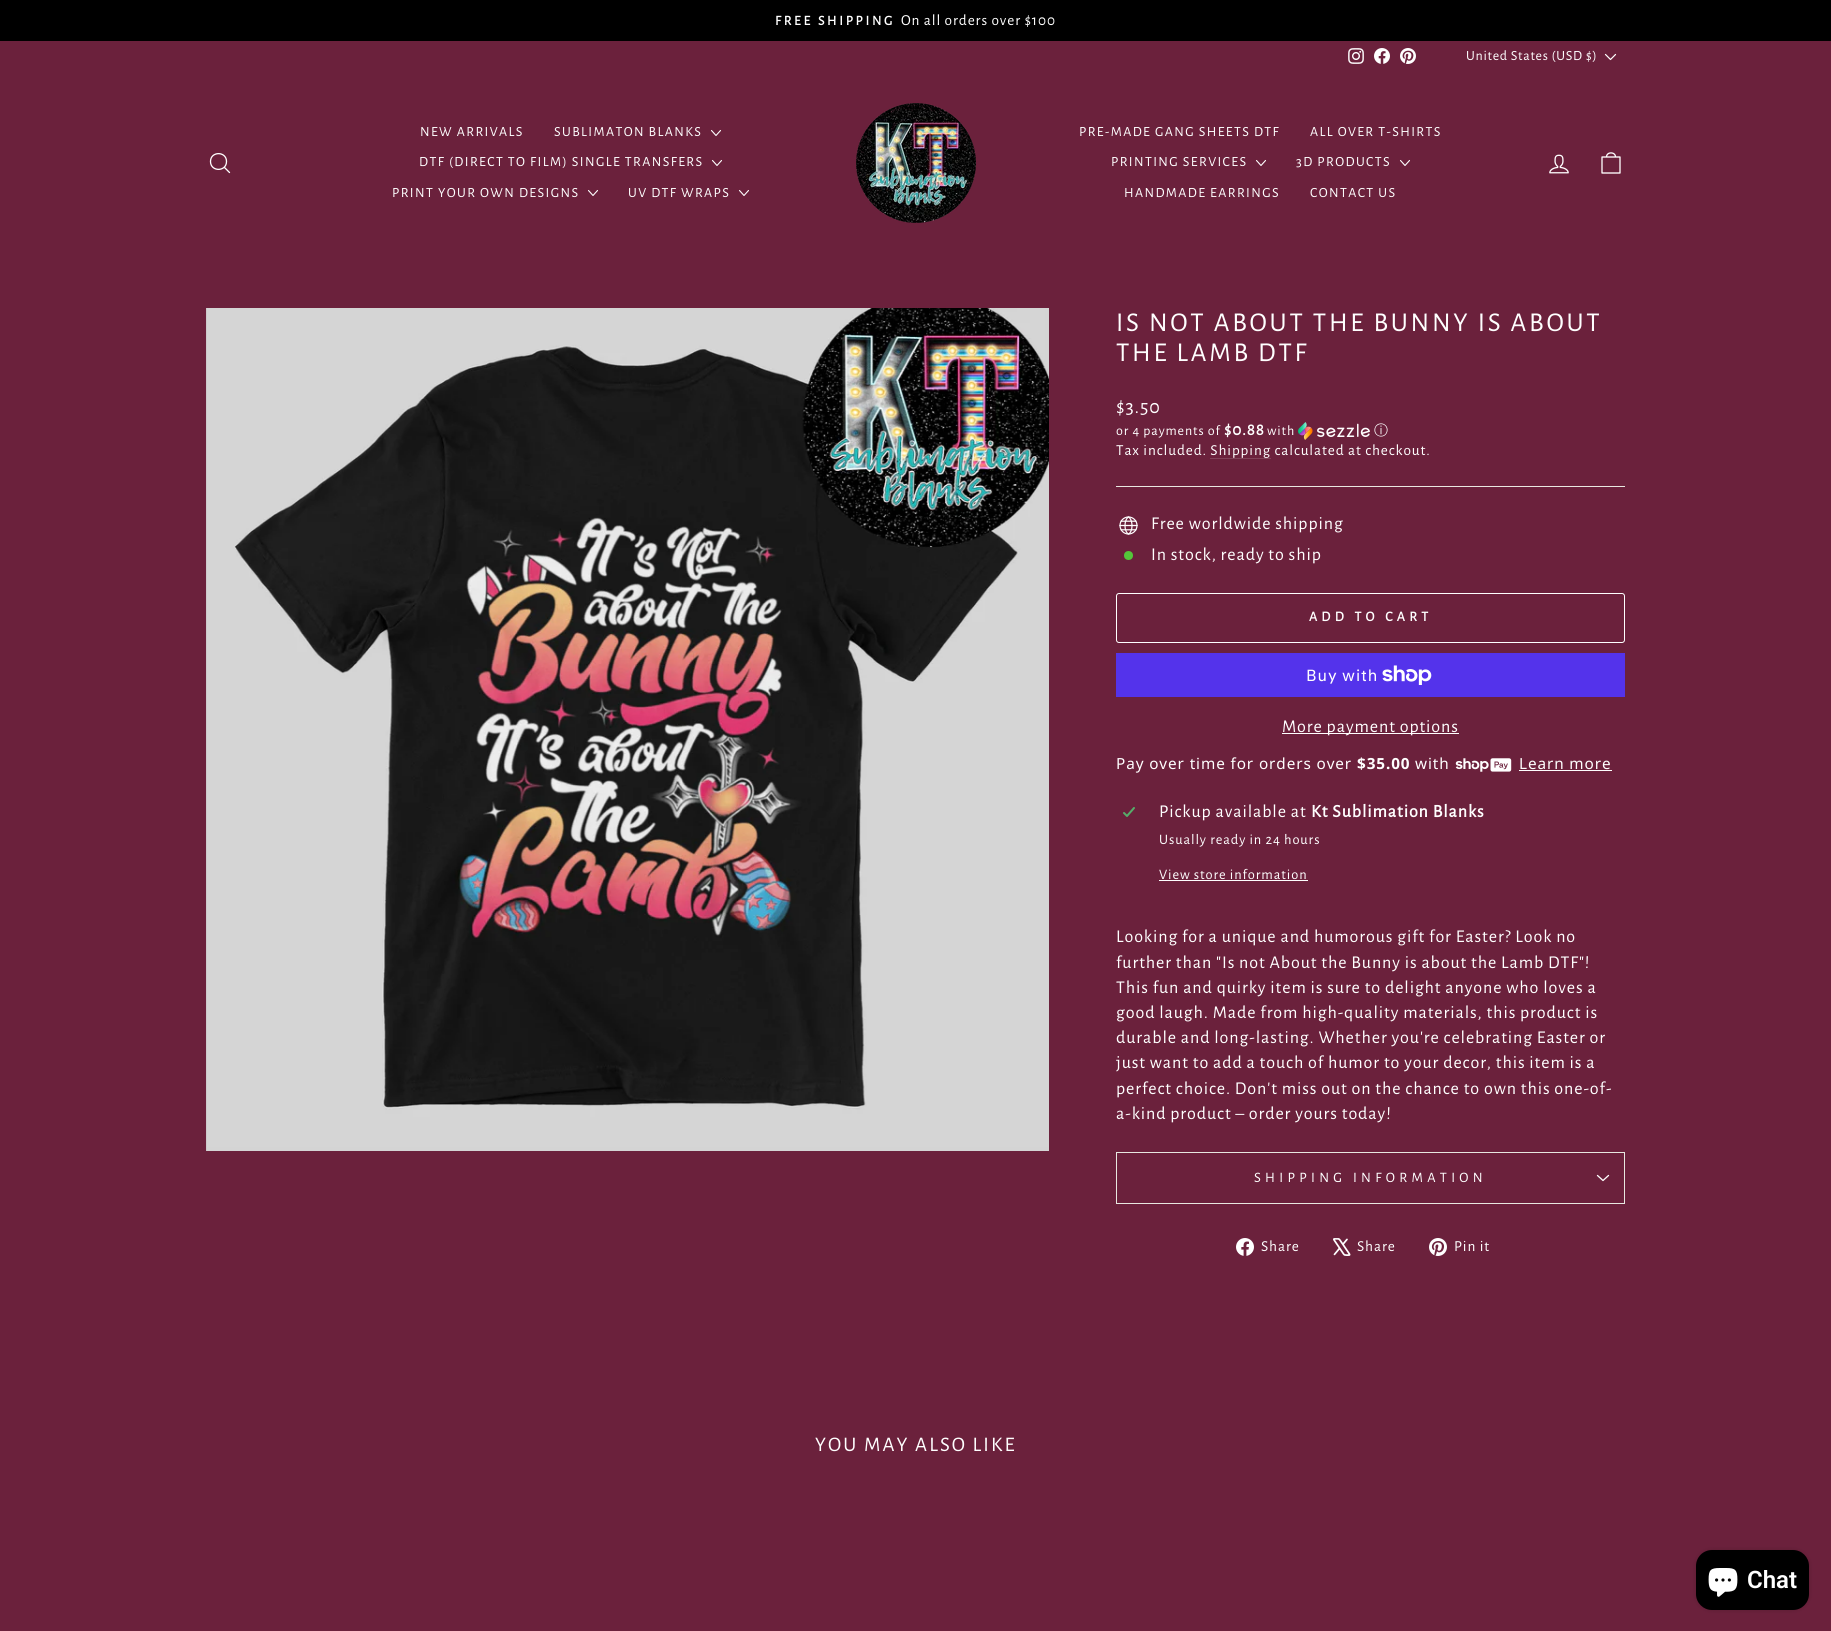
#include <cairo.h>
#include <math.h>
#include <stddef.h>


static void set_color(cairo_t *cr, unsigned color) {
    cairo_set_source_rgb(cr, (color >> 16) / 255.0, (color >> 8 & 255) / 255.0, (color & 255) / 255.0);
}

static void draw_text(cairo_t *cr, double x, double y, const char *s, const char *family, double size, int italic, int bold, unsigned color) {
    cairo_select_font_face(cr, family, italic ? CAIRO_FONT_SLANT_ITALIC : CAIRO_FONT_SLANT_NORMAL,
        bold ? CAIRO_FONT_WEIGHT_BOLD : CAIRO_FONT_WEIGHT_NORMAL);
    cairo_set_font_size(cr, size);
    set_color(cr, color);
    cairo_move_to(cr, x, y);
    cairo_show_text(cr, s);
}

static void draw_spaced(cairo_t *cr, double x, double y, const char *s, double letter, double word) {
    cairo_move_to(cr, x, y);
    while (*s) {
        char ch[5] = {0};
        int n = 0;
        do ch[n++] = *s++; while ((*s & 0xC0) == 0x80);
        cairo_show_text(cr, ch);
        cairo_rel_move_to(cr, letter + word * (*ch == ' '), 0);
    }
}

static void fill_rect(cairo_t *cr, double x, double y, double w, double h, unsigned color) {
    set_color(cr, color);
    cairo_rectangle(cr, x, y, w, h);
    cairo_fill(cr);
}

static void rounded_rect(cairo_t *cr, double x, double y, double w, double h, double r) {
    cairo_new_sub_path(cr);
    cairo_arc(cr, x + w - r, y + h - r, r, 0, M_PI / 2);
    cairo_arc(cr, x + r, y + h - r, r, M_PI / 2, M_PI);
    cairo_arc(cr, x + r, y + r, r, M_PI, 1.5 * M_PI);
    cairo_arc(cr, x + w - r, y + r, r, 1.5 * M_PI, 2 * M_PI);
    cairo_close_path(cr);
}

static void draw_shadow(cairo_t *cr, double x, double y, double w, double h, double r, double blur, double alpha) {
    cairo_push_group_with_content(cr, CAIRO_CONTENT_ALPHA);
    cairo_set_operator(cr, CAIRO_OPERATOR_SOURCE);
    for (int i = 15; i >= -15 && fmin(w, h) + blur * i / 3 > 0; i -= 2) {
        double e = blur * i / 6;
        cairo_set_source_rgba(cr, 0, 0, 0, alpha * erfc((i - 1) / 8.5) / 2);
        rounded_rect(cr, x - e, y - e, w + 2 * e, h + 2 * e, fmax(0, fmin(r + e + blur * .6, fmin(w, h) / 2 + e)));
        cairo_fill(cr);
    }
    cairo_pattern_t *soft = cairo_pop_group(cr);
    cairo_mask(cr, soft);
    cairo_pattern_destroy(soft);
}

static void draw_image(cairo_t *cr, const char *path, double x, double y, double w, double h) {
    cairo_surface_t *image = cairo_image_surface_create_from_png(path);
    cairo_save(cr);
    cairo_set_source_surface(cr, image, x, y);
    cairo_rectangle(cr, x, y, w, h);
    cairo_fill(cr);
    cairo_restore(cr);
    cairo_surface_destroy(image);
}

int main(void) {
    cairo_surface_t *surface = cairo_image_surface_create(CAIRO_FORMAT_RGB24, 1831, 1631);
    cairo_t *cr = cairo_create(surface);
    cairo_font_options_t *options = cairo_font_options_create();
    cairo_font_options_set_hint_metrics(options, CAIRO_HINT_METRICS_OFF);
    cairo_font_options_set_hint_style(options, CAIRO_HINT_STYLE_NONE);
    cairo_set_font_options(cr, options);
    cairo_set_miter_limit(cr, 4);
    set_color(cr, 0x6B213C);
    cairo_paint(cr);
    fill_rect(cr, 0, 0, 1831, 41, 0x000000);
    cairo_select_font_face(cr, "Alegreya Sans", CAIRO_FONT_SLANT_NORMAL, CAIRO_FONT_WEIGHT_BOLD);
    cairo_set_font_size(cr, 13.75);
    set_color(cr, 0xFFFFFF);
    draw_spaced(cr, 775, 25, "FREE SHIPPING", 2.75, 0);
    cairo_select_font_face(cr, "Alegreya Sans", CAIRO_FONT_SLANT_NORMAL, CAIRO_FONT_WEIGHT_NORMAL);
    cairo_set_font_size(cr, 15.3);
    draw_spaced(cr, 901, 25, "On all orders over $100", 0.9, 0);
    draw_image(cr, "assets/img1.png", 1348, 48, 16, 16);
    draw_image(cr, "assets/img2.png", 1374, 48, 16, 16);
    draw_image(cr, "assets/img3.png", 1400, 48, 16, 16);
    cairo_set_font_size(cr, 14);
    draw_spaced(cr, 1466, 60, "United States (USD $)", 0.7, 0);
    cairo_new_path(cr);
    cairo_move_to(cr, 1605.5, 54.5);
    cairo_line_to(cr, 1610.5, 59.5);
    cairo_line_to(cr, 1615.5, 54.5);
    cairo_set_line_width(cr, 1.2);
    cairo_set_line_cap(cr, CAIRO_LINE_CAP_ROUND);
    cairo_set_line_join(cr, CAIRO_LINE_JOIN_ROUND);
    cairo_stroke(cr);
    cairo_new_path(cr);
    cairo_move_to(cr, 226.5, 161.5);
    cairo_curve_to(cr, 226.5, 172, 210.5, 172, 210.5, 161.5);
    cairo_curve_to(cr, 210.5, 151, 226.5, 151, 226.5, 161.5);
    cairo_close_path(cr);
    cairo_move_to(cr, 229.5, 172.5);
    cairo_line_to(cr, 224.5, 167.5);
    cairo_set_line_width(cr, 1.3);
    cairo_stroke(cr);
    draw_spaced(cr, 420, 136, "NEW ARRIVALS", 1.4, 0);
    draw_spaced(cr, 554, 136, "SUBLIMATON BLANKS", 1.4, 0);
    cairo_new_path(cr);
    cairo_move_to(cr, 711.5, 130.5);
    cairo_line_to(cr, 716, 135.5);
    cairo_line_to(cr, 720.5, 130.5);
    cairo_set_line_width(cr, 1.1);
    cairo_stroke(cr);
    draw_spaced(cr, 419, 166, "DTF (DIRECT TO FILM) SINGLE TRANSFERS", 1.4, 0);
    cairo_new_path(cr);
    cairo_move_to(cr, 712.5, 160.5);
    cairo_line_to(cr, 717, 165.5);
    cairo_line_to(cr, 721.5, 160.5);
    cairo_stroke(cr);
    draw_spaced(cr, 392, 197, "PRINT YOUR OWN DESIGNS", 1.4, 0);
    cairo_new_path(cr);
    cairo_move_to(cr, 588.5, 190.5);
    cairo_line_to(cr, 593, 195.5);
    cairo_line_to(cr, 597.5, 190.5);
    cairo_stroke(cr);
    draw_spaced(cr, 628, 197, "UV DTF WRAPS", 1.4, 0);
    cairo_new_path(cr);
    cairo_move_to(cr, 739.5, 190.5);
    cairo_line_to(cr, 744, 195.5);
    cairo_line_to(cr, 748.5, 190.5);
    cairo_stroke(cr);
    draw_image(cr, "assets/img4.png", 856, 103, 120, 120);
    draw_spaced(cr, 1079, 136, "PRE-MADE GANG SHEETS DTF", 1.4, 0);
    draw_spaced(cr, 1310, 136, "ALL OVER T-SHIRTS", 1.4, 0);
    draw_spaced(cr, 1111, 166, "PRINTING SERVICES", 1.4, 0);
    cairo_new_path(cr);
    cairo_move_to(cr, 1256.5, 160.5);
    cairo_line_to(cr, 1261, 165.5);
    cairo_line_to(cr, 1265.5, 160.5);
    cairo_stroke(cr);
    draw_spaced(cr, 1296, 166, "3D PRODUCTS", 1.4, 0);
    cairo_new_path(cr);
    cairo_move_to(cr, 1400.5, 160.5);
    cairo_line_to(cr, 1405, 165.5);
    cairo_line_to(cr, 1409.5, 160.5);
    cairo_stroke(cr);
    draw_spaced(cr, 1124, 197, "HANDMADE EARRINGS", 1.4, 0);
    draw_spaced(cr, 1310, 197, "CONTACT US", 1.4, 0);
    draw_image(cr, "assets/img5.png", 1549, 154, 20, 20);
    cairo_new_path(cr);
    cairo_move_to(cr, 1602, 157);
    cairo_line_to(cr, 1620, 157);
    cairo_line_to(cr, 1620, 173);
    cairo_line_to(cr, 1602, 173);
    cairo_close_path(cr);
    cairo_move_to(cr, 1606.5, 157);
    cairo_curve_to(cr, 1606.5, 151.5, 1615.5, 151.5, 1615.5, 157);
    cairo_set_line_width(cr, 1.3);
    cairo_stroke(cr);
    draw_image(cr, "assets/img6.png", 206, 308, 843, 843);
    cairo_set_font_size(cr, 27.25);
    draw_spaced(cr, 1116, 331, "IS NOT ABOUT THE BUNNY IS ABOUT", 2.75, 0);
    draw_spaced(cr, 1116, 361, "THE LAMB DTF", 2.75, 0);
    cairo_set_font_size(cr, 20);
    draw_spaced(cr, 1116, 413, "$3.50", 0.9, 0);
    cairo_set_font_size(cr, 14);
    draw_spaced(cr, 1116, 435, "or 4 payments of", 0.9, 0);
    cairo_select_font_face(cr, "Alegreya Sans", CAIRO_FONT_SLANT_NORMAL, CAIRO_FONT_WEIGHT_BOLD);
    cairo_set_font_size(cr, 17);
    draw_spaced(cr, 1224, 435, "$0.88", 0.9, 0);
    cairo_select_font_face(cr, "Alegreya Sans", CAIRO_FONT_SLANT_NORMAL, CAIRO_FONT_WEIGHT_NORMAL);
    cairo_set_font_size(cr, 14);
    draw_spaced(cr, 1267, 435, "with", 0.9, 0);
    draw_image(cr, "assets/img7.png", 1298, 422, 72, 18);
    cairo_select_font_face(cr, "WenQuanYi Zen Hei Medium", CAIRO_FONT_SLANT_NORMAL, CAIRO_FONT_WEIGHT_NORMAL);
    draw_spaced(cr, 1374, 435, "ⓘ", 0.9, 0);
    cairo_select_font_face(cr, "Alegreya Sans", CAIRO_FONT_SLANT_NORMAL, CAIRO_FONT_WEIGHT_NORMAL);
    cairo_set_font_size(cr, 15.3);
    draw_spaced(cr, 1116, 455, "Tax included. Shipping calculated at checkout.", 0.9, 0);
    fill_rect(cr, 1210, 458, 61, 1, 0x814259);
    fill_rect(cr, 1116, 486, 509, 1, 0xE8E8E1);
    draw_image(cr, "assets/img8.png", 1119, 516, 19, 19);
    cairo_set_font_size(cr, 18);
    set_color(cr, 0xFFFFFF);
    draw_spaced(cr, 1151, 529, "Free worldwide shipping", 0.9, 0);
    set_color(cr, 0x54C63A);
    cairo_new_path(cr);
    cairo_arc(cr, 1128.5, 555.5, 4.5, 0, 2 * M_PI);
    cairo_fill(cr);
    set_color(cr, 0xFFFFFF);
    draw_spaced(cr, 1151, 560, "In stock, ready to ship", 0.9, 0);
    rounded_rect(cr, 1116.5, 593.5, 508, 49, 2.5);
    cairo_set_line_width(cr, 1);
    cairo_set_line_cap(cr, CAIRO_LINE_CAP_BUTT);
    cairo_set_line_join(cr, CAIRO_LINE_JOIN_MITER);
    cairo_stroke(cr);
    cairo_select_font_face(cr, "Alegreya Sans", CAIRO_FONT_SLANT_NORMAL, CAIRO_FONT_WEIGHT_BOLD);
    cairo_set_font_size(cr, 14);
    draw_spaced(cr, 1309, 621, "ADD TO CART", 4.25, 0);
    fill_rect(cr, 1116, 653, 509, 44, 0x5433EB);
    cairo_select_font_face(cr, "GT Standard", CAIRO_FONT_SLANT_NORMAL, CAIRO_FONT_WEIGHT_NORMAL);
    cairo_set_font_size(cr, 16);
    set_color(cr, 0xFFFFFF);
    draw_spaced(cr, 1306, 681, "Buy with", 0.9, 0);
    draw_image(cr, "assets/img9.png", 1382, 665, 50, 20);
    fill_rect(cr, 1282, 733, 177, 1, 0xFFFFFF);
    cairo_select_font_face(cr, "Alegreya Sans", CAIRO_FONT_SLANT_NORMAL, CAIRO_FONT_WEIGHT_NORMAL);
    cairo_set_font_size(cr, 18);
    draw_spaced(cr, 1282, 732, "More payment options", 0.9, 0);
    cairo_select_font_face(cr, "Noto Sans", CAIRO_FONT_SLANT_NORMAL, CAIRO_FONT_WEIGHT_NORMAL);
    cairo_set_font_size(cr, 15.3);
    draw_spaced(cr, 1116, 769, "Pay over time for orders over", 0.9, 0);
    cairo_select_font_face(cr, "Noto Sans", CAIRO_FONT_SLANT_NORMAL, CAIRO_FONT_WEIGHT_BOLD);
    draw_spaced(cr, 1357, 769, "$35.00", 0.9, 0);
    cairo_select_font_face(cr, "Noto Sans", CAIRO_FONT_SLANT_NORMAL, CAIRO_FONT_WEIGHT_NORMAL);
    draw_spaced(cr, 1415, 769, "with", 0.9, 0);
    draw_image(cr, "assets/img10.png", 1455, 758, 57, 14);
    draw_spaced(cr, 1519, 769, "Learn more", 0.9, 0);
    fill_rect(cr, 1519, 770, 93, 1, 0xFFFFFF);
    draw_image(cr, "assets/img11.png", 1123, 807, 12, 10);
    cairo_select_font_face(cr, "Alegreya Sans", CAIRO_FONT_SLANT_NORMAL, CAIRO_FONT_WEIGHT_NORMAL);
    cairo_set_font_size(cr, 18);
    draw_spaced(cr, 1159, 817, "Pickup available at", 0.9, 0);
    cairo_select_font_face(cr, "Alegreya Sans", CAIRO_FONT_SLANT_NORMAL, CAIRO_FONT_WEIGHT_BOLD);
    draw_spaced(cr, 1311, 817, "Kt Sublimation Blanks", 0.9, 0);
    cairo_select_font_face(cr, "Alegreya Sans", CAIRO_FONT_SLANT_NORMAL, CAIRO_FONT_WEIGHT_NORMAL);
    cairo_set_font_size(cr, 14.4);
    draw_spaced(cr, 1159, 844, "Usually ready in 24 hours", 0.9, 0);
    draw_spaced(cr, 1159, 879, "View store information", 0.9, 0);
    fill_rect(cr, 1159, 880, 149, 1, 0xFFFFFF);
    cairo_set_font_size(cr, 18);
    draw_spaced(cr, 1116, 942, "Looking for a unique and humorous gift for Easter? Look no", 0.9, 0);
    draw_spaced(cr, 1116, 968, "further than \"Is not About the Bunny is about the Lamb DTF\"!", 0.9, 0);
    draw_spaced(cr, 1116, 993, "This fun and quirky item is sure to delight anyone who loves a", 0.9, 0);
    draw_spaced(cr, 1116, 1018, "good laugh. Made from high-quality materials, this product is", 0.9, 0);
    draw_spaced(cr, 1116, 1043, "durable and long-lasting. Whether you're celebrating Easter or", 0.9, 0);
    draw_spaced(cr, 1116, 1068, "just want to add a touch of humor to your decor, this item is a", 0.9, 0);
    draw_spaced(cr, 1116, 1094, "perfect choice. Don't miss out on the chance to own this one-of-", 0.9, 0);
    draw_spaced(cr, 1116, 1119, "a-kind product – order yours today!", 0.9, 0);
    fill_rect(cr, 1116, 1203, 509, 1, 0xE8E8E1);
    fill_rect(cr, 1116, 1152, 509, 1, 0xE8E8E1);
    fill_rect(cr, 1624, 1152, 1, 51, 0xE8E8E1);
    fill_rect(cr, 1116, 1152, 1, 51, 0xE8E8E1);
    cairo_set_font_size(cr, 14.4);
    set_color(cr, 0xFFFFFF);
    draw_spaced(cr, 1254, 1182, "SHIPPING INFORMATION", 4.3, 0);
    cairo_new_path(cr);
    cairo_move_to(cr, 1597.5, 1175.5);
    cairo_line_to(cr, 1603, 1180.5);
    cairo_line_to(cr, 1608.5, 1175.5);
    cairo_set_line_width(cr, 1.3);
    cairo_set_line_cap(cr, CAIRO_LINE_CAP_ROUND);
    cairo_set_line_join(cr, CAIRO_LINE_JOIN_ROUND);
    cairo_stroke(cr);
    draw_image(cr, "assets/img12.png", 1236, 1238, 18, 18);
    cairo_set_font_size(cr, 15.3);
    draw_spaced(cr, 1261, 1251, "Share", 0.9, 0);
    draw_image(cr, "assets/img13.png", 1333, 1238, 18, 18);
    draw_spaced(cr, 1357, 1251, "Share", 0.9, 0);
    draw_image(cr, "assets/img14.png", 1429, 1238, 18, 18);
    draw_spaced(cr, 1454, 1251, "Pin it", 0.9, 0);
    cairo_set_font_size(cr, 20.75);
    draw_spaced(cr, 815, 1451, "YOU MAY ALSO LIKE", 2.1, 0);
    set_color(cr, 0x000000);
    draw_shadow(cr, 1696, 1550, 113, 60, 16, 2.5, 0.15);
    set_color(cr, 0x000000);
    rounded_rect(cr, 1696, 1550, 113, 60, 16);
    cairo_fill(cr);
    draw_image(cr, "assets/img15.png", 1708, 1568, 30, 29);
    draw_text(cr, 1747, 1588, "Chat", "Roboto SemiBold", 24, 0, 0, 0xFFFFFF);
    cairo_surface_write_to_png(surface, "output.png");
    cairo_font_options_destroy(options);
    cairo_destroy(cr);
    cairo_surface_destroy(surface);
    return 0;
}
